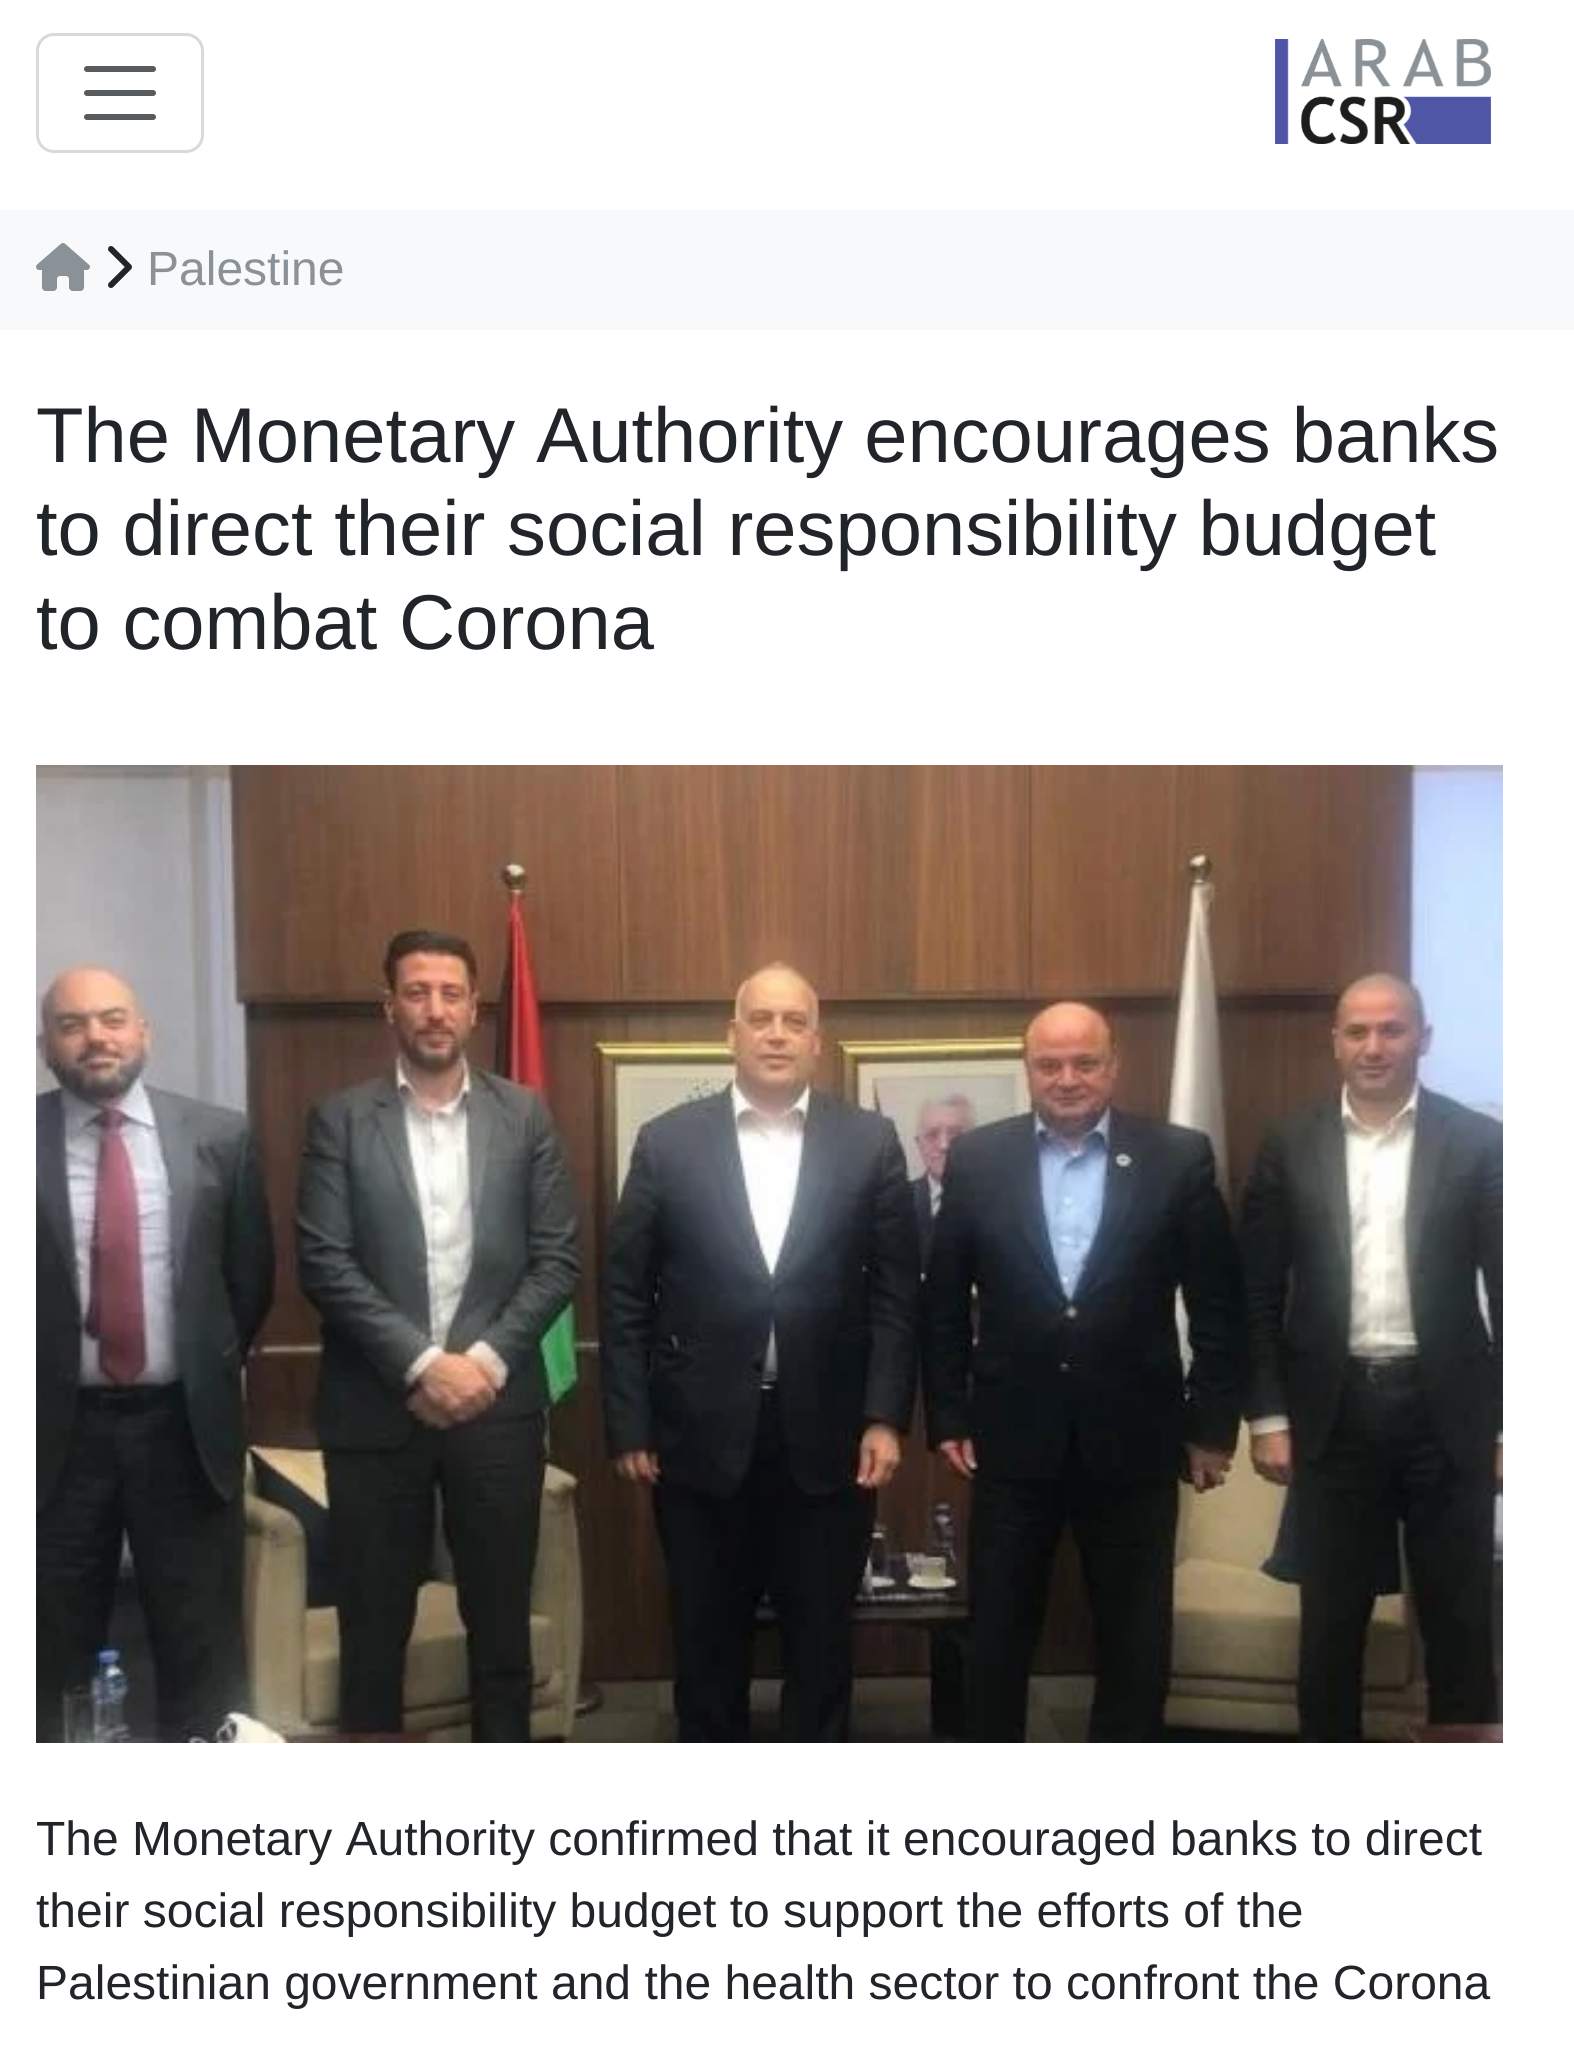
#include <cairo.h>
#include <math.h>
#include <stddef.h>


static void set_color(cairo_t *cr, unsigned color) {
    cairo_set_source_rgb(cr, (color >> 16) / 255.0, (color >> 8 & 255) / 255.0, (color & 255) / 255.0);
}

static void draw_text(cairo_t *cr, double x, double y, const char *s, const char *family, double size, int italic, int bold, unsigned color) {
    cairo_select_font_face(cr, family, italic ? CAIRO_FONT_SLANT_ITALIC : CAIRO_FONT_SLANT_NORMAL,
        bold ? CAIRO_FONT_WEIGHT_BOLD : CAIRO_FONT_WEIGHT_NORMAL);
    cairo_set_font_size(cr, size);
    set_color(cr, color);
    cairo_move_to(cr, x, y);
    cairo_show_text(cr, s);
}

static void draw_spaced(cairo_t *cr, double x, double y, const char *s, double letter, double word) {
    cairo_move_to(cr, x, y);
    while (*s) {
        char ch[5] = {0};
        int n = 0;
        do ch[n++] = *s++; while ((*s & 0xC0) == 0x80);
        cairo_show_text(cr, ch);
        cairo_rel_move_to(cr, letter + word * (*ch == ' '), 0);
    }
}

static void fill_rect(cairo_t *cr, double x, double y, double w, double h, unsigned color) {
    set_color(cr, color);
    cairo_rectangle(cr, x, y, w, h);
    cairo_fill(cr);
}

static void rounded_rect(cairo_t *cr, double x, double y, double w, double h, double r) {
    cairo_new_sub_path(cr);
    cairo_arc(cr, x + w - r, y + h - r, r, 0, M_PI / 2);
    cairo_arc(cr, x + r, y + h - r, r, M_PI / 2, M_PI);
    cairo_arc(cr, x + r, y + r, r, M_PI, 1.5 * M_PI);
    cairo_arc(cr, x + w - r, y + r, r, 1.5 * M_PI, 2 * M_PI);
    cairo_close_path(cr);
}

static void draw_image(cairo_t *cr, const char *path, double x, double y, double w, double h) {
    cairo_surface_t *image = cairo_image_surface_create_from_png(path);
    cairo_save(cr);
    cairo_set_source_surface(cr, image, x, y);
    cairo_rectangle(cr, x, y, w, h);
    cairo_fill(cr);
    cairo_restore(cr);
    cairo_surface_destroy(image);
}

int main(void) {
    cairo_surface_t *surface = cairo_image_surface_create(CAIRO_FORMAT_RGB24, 1574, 2050);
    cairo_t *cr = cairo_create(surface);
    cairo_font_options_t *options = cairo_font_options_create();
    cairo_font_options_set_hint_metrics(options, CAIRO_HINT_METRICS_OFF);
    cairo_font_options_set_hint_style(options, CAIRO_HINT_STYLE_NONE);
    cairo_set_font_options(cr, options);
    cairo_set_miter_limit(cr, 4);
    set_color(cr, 0xFFFFFF);
    cairo_paint(cr);
    rounded_rect(cr, 37.5, 34.5, 165, 117, 16.5);
    set_color(cr, 0xD9D9D9);
    cairo_set_line_width(cr, 3);
    cairo_stroke(cr);
    cairo_new_path(cr);
    cairo_move_to(cr, 87, 69);
    cairo_line_to(cr, 153, 69);
    cairo_move_to(cr, 87, 93);
    cairo_line_to(cr, 153, 93);
    cairo_move_to(cr, 87, 117);
    cairo_line_to(cr, 153, 117);
    set_color(cr, 0x595C5F);
    cairo_set_line_width(cr, 6);
    cairo_set_line_cap(cr, CAIRO_LINE_CAP_ROUND);
    cairo_stroke(cr);
    draw_image(cr, "assets/img1.png", 1275, 39, 216, 105);
    fill_rect(cr, 0, 210, 1574, 120, 0xF8F9FA);
    draw_image(cr, "assets/img2.png", 36, 243, 54, 48);
    draw_image(cr, "assets/img3.png", 108, 246, 24, 42);
    draw_text(cr, 147, 285, "Palestine", "Liberation Sans", 48, 0, 0, 0x8A9298);
    cairo_set_font_size(cr, 77.75);
    set_color(cr, 0x212529);
    draw_spaced(cr, 36, 462, "The Monetary Authority encourages banks", 0, -0.5);
    draw_text(cr, 36, 555, "to direct their social responsibility budget", "Liberation Sans", 77.75, 0, 0, 0x212529);
    draw_text(cr, 36, 649, "to combat Corona", "Liberation Sans", 77.75, 0, 0, 0x212529);
    draw_image(cr, "assets/img4.png", 36, 765, 1467, 978);
    draw_text(cr, 36, 1855, "The Monetary Authority confirmed that it encouraged banks to direct", "Liberation Sans", 48, 0, 0, 0x212529);
    draw_text(cr, 36, 1927, "their social responsibility budget to support the efforts of the", "Liberation Sans", 48, 0, 0, 0x212529);
    draw_text(cr, 36, 1999, "Palestinian government and the health sector to confront the Corona", "Liberation Sans", 48, 0, 0, 0x212529);
    cairo_surface_write_to_png(surface, "output.png");
    cairo_font_options_destroy(options);
    cairo_destroy(cr);
    cairo_surface_destroy(surface);
    return 0;
}
